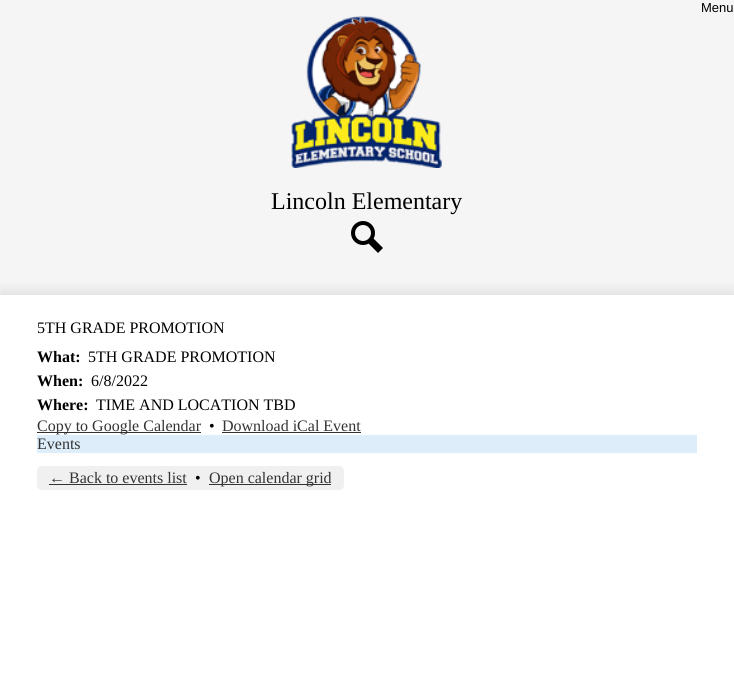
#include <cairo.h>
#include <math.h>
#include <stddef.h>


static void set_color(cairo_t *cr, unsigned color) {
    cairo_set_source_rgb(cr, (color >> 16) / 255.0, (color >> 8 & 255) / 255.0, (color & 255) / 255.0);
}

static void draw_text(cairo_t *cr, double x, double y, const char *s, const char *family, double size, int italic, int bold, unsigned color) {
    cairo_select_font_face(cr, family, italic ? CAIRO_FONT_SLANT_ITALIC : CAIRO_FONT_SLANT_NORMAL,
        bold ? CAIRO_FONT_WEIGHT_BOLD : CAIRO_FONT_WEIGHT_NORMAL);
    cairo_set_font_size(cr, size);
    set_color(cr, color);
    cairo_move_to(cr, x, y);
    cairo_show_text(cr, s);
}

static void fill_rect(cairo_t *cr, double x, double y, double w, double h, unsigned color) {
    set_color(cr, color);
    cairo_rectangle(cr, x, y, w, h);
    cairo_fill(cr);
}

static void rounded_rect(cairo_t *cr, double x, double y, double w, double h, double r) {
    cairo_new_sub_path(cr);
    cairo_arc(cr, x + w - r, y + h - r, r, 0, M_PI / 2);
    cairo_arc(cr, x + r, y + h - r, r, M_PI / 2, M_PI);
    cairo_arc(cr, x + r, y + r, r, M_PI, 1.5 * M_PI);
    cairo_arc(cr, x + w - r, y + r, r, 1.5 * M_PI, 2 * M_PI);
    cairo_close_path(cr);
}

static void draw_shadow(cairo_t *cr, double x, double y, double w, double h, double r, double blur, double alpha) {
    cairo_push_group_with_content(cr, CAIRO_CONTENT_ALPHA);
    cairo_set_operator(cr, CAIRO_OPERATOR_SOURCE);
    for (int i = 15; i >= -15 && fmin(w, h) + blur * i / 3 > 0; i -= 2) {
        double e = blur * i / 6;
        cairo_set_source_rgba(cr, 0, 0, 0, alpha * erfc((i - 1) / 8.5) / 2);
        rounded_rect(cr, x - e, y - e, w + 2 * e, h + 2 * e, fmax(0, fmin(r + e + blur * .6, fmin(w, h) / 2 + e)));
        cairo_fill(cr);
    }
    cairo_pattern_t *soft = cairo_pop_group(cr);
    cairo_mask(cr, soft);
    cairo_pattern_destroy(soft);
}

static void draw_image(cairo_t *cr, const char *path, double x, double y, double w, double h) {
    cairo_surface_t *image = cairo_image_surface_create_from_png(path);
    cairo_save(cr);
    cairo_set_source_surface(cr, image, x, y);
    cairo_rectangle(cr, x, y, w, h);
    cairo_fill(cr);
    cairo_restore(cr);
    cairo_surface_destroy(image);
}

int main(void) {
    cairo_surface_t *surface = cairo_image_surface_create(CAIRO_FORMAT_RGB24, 734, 683);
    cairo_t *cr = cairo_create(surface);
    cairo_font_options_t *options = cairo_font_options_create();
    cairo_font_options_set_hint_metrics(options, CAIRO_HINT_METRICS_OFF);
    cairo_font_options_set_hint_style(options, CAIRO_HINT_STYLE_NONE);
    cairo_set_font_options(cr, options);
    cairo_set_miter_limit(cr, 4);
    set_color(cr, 0xF5F5F5);
    cairo_paint(cr);
    draw_text(cr, 701, 12, "Menu", "Liberation Sans", 13, 0, 0, 0x000000);
    draw_image(cr, "assets/img1.png", 291, 16, 151, 152);
    draw_text(cr, 271, 209, "Lincoln Elementary", "Liberation Serif", 24, 0, 0, 0x000000);
    draw_image(cr, "assets/img2.png", 351, 221, 32, 32);
    set_color(cr, 0x000000);
    draw_shadow(cr, 0, 295, 734, 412, 0, 8, 0.15);
    fill_rect(cr, 0, 295, 734, 388, 0xFFFFFF);
    draw_text(cr, 37, 333, "5TH GRADE PROMOTION", "Liberation Serif", 16, 0, 0, 0x000000);
    draw_text(cr, 37, 362, "What:", "Liberation Serif", 16, 0, 1, 0x000000);
    draw_text(cr, 88, 362, "5TH GRADE PROMOTION", "Liberation Serif", 16, 0, 0, 0x000000);
    draw_text(cr, 37, 386, "When:", "Liberation Serif", 16, 0, 1, 0x000000);
    draw_text(cr, 91, 386, "6/8/2022", "Liberation Serif", 16, 0, 0, 0x000000);
    draw_text(cr, 37, 410, "Where:", "Liberation Serif", 16, 0, 1, 0x000000);
    draw_text(cr, 96, 410, "TIME AND LOCATION TBD", "Liberation Serif", 16, 0, 0, 0x000000);
    fill_rect(cr, 37, 432, 164, 1, 0x333333);
    draw_text(cr, 37, 431, "Copy to Google Calendar", "Liberation Serif", 16, 0, 0, 0x333333);
    draw_text(cr, 209, 431, "•", "Liberation Serif", 16, 0, 0, 0x000000);
    draw_text(cr, 222, 431, "Download iCal Event", "Liberation Serif", 16, 0, 0, 0x333333);
    fill_rect(cr, 222, 432, 139, 1, 0x333333);
    fill_rect(cr, 37, 435, 660, 18, 0xDDEEFA);
    draw_text(cr, 37, 449, "Events", "Liberation Serif", 16, 0, 0, 0x333333);
    set_color(cr, 0xF0F0F0);
    rounded_rect(cr, 37, 466, 307, 24, 5);
    cairo_fill(cr);
    draw_text(cr, 49, 483, "← Back to events list", "Liberation Serif", 16, 0, 0, 0x333333);
    fill_rect(cr, 49, 484, 138, 1, 0x333333);
    draw_text(cr, 195, 483, "•", "Liberation Serif", 16, 0, 0, 0x000000);
    fill_rect(cr, 209, 484, 122, 1, 0x333333);
    draw_text(cr, 209, 483, "Open calendar grid", "Liberation Serif", 16, 0, 0, 0x333333);
    cairo_surface_write_to_png(surface, "output.png");
    cairo_font_options_destroy(options);
    cairo_destroy(cr);
    cairo_surface_destroy(surface);
    return 0;
}
